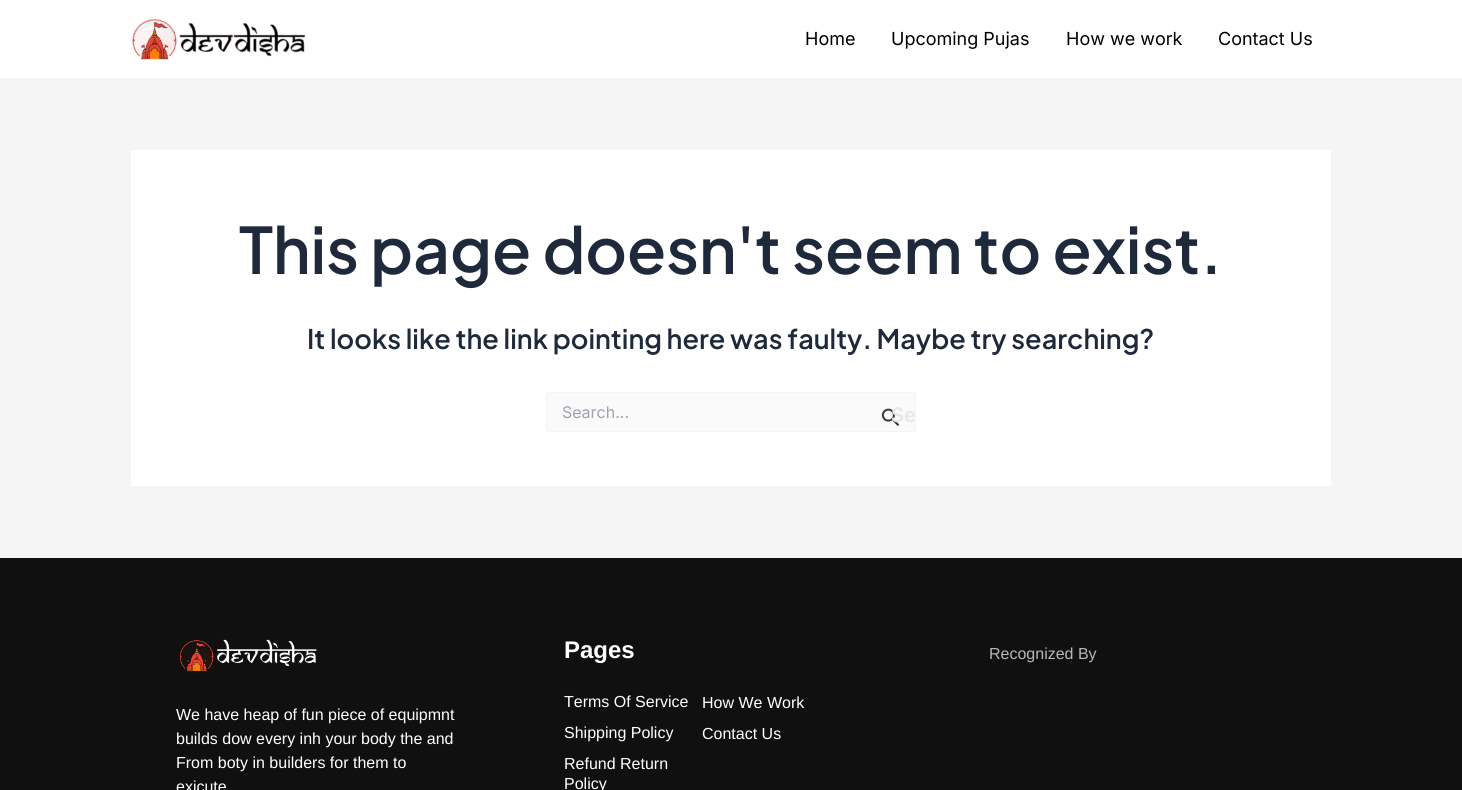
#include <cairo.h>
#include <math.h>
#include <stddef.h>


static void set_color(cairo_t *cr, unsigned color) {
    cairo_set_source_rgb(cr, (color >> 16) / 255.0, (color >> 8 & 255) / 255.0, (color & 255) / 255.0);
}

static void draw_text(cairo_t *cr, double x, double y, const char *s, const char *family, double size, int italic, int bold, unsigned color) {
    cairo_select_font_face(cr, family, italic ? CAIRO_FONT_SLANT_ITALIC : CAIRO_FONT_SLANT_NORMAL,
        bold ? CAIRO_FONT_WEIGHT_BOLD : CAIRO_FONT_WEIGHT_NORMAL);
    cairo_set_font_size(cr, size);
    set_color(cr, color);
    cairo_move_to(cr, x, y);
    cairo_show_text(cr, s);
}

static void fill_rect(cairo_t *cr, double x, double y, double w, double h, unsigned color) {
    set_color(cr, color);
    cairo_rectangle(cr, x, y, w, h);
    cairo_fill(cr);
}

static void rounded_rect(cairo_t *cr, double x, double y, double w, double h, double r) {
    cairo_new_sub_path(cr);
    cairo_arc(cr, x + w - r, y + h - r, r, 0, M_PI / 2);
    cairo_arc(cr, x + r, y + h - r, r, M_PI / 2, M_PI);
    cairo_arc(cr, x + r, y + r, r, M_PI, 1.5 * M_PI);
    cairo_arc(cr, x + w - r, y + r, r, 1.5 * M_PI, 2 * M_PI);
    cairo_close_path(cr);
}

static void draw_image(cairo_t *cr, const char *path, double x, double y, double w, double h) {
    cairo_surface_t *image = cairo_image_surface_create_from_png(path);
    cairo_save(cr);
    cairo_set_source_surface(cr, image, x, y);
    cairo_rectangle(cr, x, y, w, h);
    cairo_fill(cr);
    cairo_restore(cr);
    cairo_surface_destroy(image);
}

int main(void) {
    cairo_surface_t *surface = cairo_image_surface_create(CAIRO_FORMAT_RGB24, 1462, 790);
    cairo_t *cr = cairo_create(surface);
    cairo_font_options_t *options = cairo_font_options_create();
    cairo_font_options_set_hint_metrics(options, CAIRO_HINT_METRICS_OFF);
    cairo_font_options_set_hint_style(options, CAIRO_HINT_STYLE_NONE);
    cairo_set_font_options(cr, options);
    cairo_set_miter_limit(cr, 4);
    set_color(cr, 0xF5F5F5);
    cairo_paint(cr);
    fill_rect(cr, 0, 0, 1462, 78, 0xFFFFFF);
    draw_image(cr, "assets/img1.png", 132, 19, 174, 41);
    draw_text(cr, 805, 45, "Home", "Inter", 18, 0, 0, 0x000000);
    draw_text(cr, 891, 45, "Upcoming Pujas", "Inter", 18, 0, 0, 0x000000);
    draw_text(cr, 1066, 45, "How we work", "Inter", 18, 0, 0, 0x000000);
    draw_text(cr, 1218, 45, "Contact Us", "Inter", 18, 0, 0, 0x000000);
    fill_rect(cr, 131, 150, 1200, 336, 0xFFFFFF);
    draw_text(cr, 239, 274, "This page doesn't seem to exist.", "Plus Jakarta Sans SemiBold", 64, 0, 0, 0x1E293B);
    draw_text(cr, 307, 349, "It looks like the link pointing here was faulty. Maybe try searching?", "Plus Jakarta Sans SemiBold", 27, 0, 0, 0x1E293B);
    set_color(cr, 0xFAFAFA);
    rounded_rect(cr, 546.5, 392.5, 369, 39, 1.5);
    cairo_fill_preserve(cr);
    set_color(cr, 0xF2F5F7);
    cairo_set_line_width(cr, 1);
    cairo_stroke(cr);
    draw_text(cr, 562, 418, "Search...", "Inter", 16, 0, 0, 0x9CA3AF);
    draw_image(cr, "assets/img2.png", 881, 408, 18, 18);
    draw_text(cr, 891, 422, "Se", "Inter SemiBold", 20, 0, 0, 0xE7E7E7);
    fill_rect(cr, 0, 558, 1462, 232, 0x101010);
    draw_text(cr, 564, 658, "Pages", "Liberation Sans", 24, 0, 1, 0xFFFFFF);
    draw_text(cr, 564, 707, "Terms Of Service", "Liberation Sans", 16, 0, 0, 0xFFFFFF);
    draw_text(cr, 564, 738, "Shipping Policy", "Liberation Sans", 16, 0, 0, 0xFFFFFF);
    draw_text(cr, 564, 769, "Refund Return", "Liberation Sans", 16, 0, 0, 0xFFFFFF);
    draw_text(cr, 564, 789, "Policy", "Liberation Sans", 16, 0, 0, 0xFFFFFF);
    draw_text(cr, 989, 659, "Recognized By", "Liberation Sans", 16, 0, 0, 0xB7B7B7);
    draw_image(cr, "assets/img3.png", 179, 639, 138, 33);
    draw_text(cr, 176, 720, "We have heap of fun piece of equipmnt", "Liberation Sans", 16, 0, 0, 0xFFFFFF);
    draw_text(cr, 176, 744, "builds dow every inh your body the and", "Liberation Sans", 16, 0, 0, 0xFFFFFF);
    draw_text(cr, 176, 768, "From boty in builders for them to", "Liberation Sans", 16, 0, 0, 0xFFFFFF);
    draw_text(cr, 176, 792, "exicute", "Liberation Sans", 16, 0, 0, 0xFFFFFF);
    draw_text(cr, 702, 708, "How We Work", "Liberation Sans", 16, 0, 0, 0xFFFFFF);
    draw_text(cr, 702, 739, "Contact Us", "Liberation Sans", 16, 0, 0, 0xFFFFFF);
    cairo_surface_write_to_png(surface, "output.png");
    cairo_font_options_destroy(options);
    cairo_destroy(cr);
    cairo_surface_destroy(surface);
    return 0;
}
